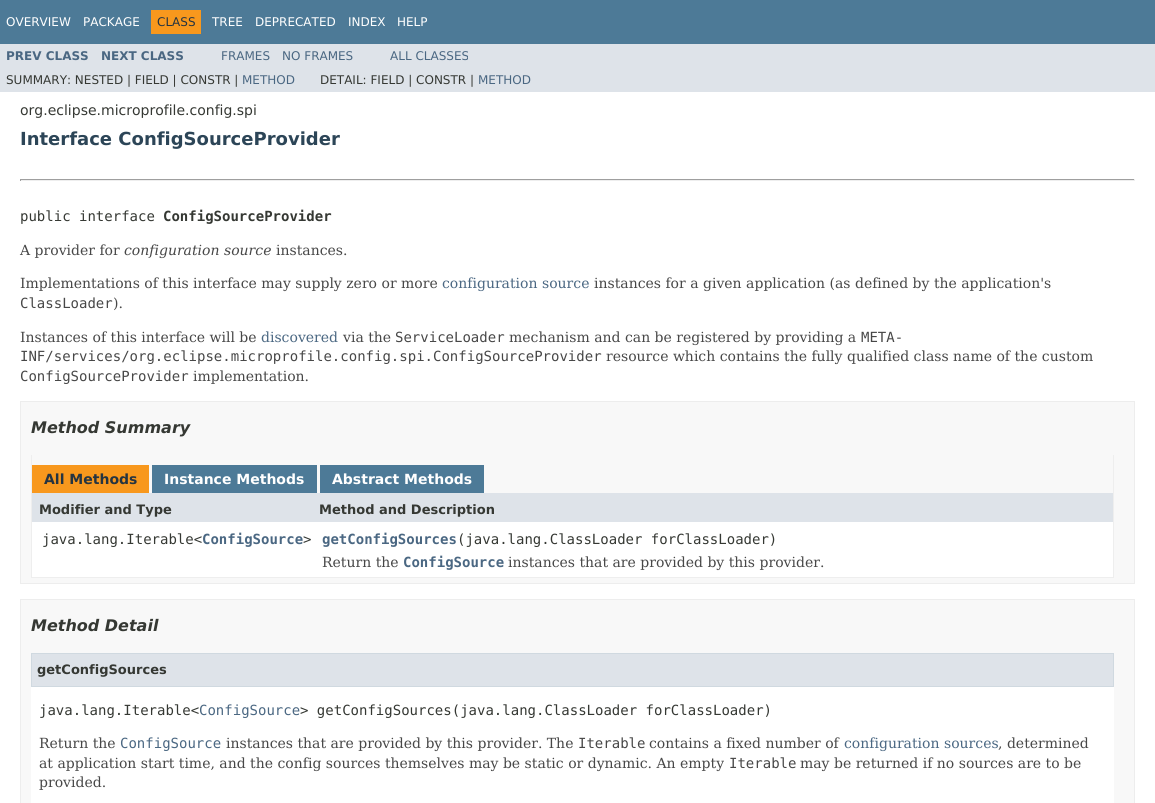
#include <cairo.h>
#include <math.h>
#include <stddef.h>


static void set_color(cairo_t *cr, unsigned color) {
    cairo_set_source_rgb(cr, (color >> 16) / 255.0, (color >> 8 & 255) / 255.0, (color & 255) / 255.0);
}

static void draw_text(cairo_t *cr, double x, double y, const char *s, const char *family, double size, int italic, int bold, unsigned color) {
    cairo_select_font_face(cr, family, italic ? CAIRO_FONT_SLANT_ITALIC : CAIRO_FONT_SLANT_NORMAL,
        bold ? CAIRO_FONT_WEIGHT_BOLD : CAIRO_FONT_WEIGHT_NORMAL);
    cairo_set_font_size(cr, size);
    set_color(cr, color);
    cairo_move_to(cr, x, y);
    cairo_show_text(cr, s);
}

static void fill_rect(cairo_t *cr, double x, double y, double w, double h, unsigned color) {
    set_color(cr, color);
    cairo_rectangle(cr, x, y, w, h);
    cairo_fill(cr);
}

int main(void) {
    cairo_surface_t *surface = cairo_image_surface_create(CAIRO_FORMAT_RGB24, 1155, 803);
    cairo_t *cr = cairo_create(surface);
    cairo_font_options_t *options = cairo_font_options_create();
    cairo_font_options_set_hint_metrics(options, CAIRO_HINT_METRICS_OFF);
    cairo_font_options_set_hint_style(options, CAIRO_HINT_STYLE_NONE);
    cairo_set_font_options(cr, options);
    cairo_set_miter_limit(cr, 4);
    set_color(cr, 0xFFFFFF);
    cairo_paint(cr);
    fill_rect(cr, 0, 0, 1155, 44, 0x4D7A97);
    draw_text(cr, 6, 26, "OVERVIEW", "DejaVu Sans", 12, 0, 0, 0xFFFFFF);
    draw_text(cr, 83, 26, "PACKAGE", "DejaVu Sans", 12, 0, 0, 0xFFFFFF);
    fill_rect(cr, 151, 10, 50, 24, 0xF8981D);
    draw_text(cr, 157, 26, "CLASS", "DejaVu Sans", 12, 0, 0, 0x253441);
    draw_text(cr, 212, 26, "TREE", "DejaVu Sans", 12, 0, 0, 0xFFFFFF);
    draw_text(cr, 255, 26, "DEPRECATED", "DejaVu Sans", 12, 0, 0, 0xFFFFFF);
    draw_text(cr, 348, 26, "INDEX", "DejaVu Sans", 12, 0, 0, 0xFFFFFF);
    draw_text(cr, 397, 26, "HELP", "DejaVu Sans", 12, 0, 0, 0xFFFFFF);
    fill_rect(cr, 0, 44, 1155, 48, 0xDEE3E9);
    draw_text(cr, 6, 60, "PREV CLASS", "DejaVu Sans", 12, 0, 1, 0x4A6782);
    draw_text(cr, 101, 60, "NEXT CLASS", "DejaVu Sans", 12, 0, 1, 0x4A6782);
    draw_text(cr, 221, 60, "FRAMES", "DejaVu Sans", 12, 0, 0, 0x4A6782);
    draw_text(cr, 282, 60, "NO FRAMES", "DejaVu Sans", 12, 0, 0, 0x4A6782);
    draw_text(cr, 390, 60, "ALL CLASSES", "DejaVu Sans", 12, 0, 0, 0x4A6782);
    draw_text(cr, 6, 84, "SUMMARY: NESTED | FIELD | CONSTR |", "DejaVu Sans", 12, 0, 0, 0x353833);
    draw_text(cr, 242, 84, "METHOD", "DejaVu Sans", 12, 0, 0, 0x4A6782);
    draw_text(cr, 320, 84, "DETAIL: FIELD | CONSTR |", "DejaVu Sans", 12, 0, 0, 0x353833);
    draw_text(cr, 478, 84, "METHOD", "DejaVu Sans", 12, 0, 0, 0x4A6782);
    draw_text(cr, 20, 115, "org.eclipse.microprofile.config.spi", "DejaVu Sans", 14, 0, 0, 0x353833);
    draw_text(cr, 20, 145, "Interface ConfigSourceProvider", "DejaVu Sans", 18, 0, 1, 0x2C4557);
    fill_rect(cr, 20, 179, 1115, 1, 0x9F9F9F);
    fill_rect(cr, 1134, 179, 1, 2, 0xEEEEEE);
    fill_rect(cr, 20, 180, 1115, 1, 0xEEEEEE);
    fill_rect(cr, 20, 179, 1, 2, 0x9F9F9F);
    draw_text(cr, 20, 221, "public interface", "DejaVu Sans Mono", 14, 0, 0, 0x353833);
    draw_text(cr, 163, 221, "ConfigSourceProvider", "DejaVu Sans Mono", 14, 0, 1, 0x353833);
    draw_text(cr, 20, 255, "A provider for", "DejaVu Serif", 14, 0, 0, 0x474747);
    draw_text(cr, 124, 255, "configuration source", "DejaVu Serif", 14, 1, 0, 0x474747);
    draw_text(cr, 276, 255, "instances.", "DejaVu Serif", 14, 0, 0, 0x474747);
    draw_text(cr, 20, 288, "Implementations of this interface may supply zero or more", "DejaVu Serif", 14, 0, 0, 0x474747);
    draw_text(cr, 442, 288, "configuration source", "DejaVu Serif", 14, 0, 0, 0x4A6782);
    draw_text(cr, 594, 288, "instances for a given application (as defined by the application's", "DejaVu Serif", 14, 0, 0, 0x474747);
    draw_text(cr, 20, 308, "ClassLoader", "DejaVu Sans Mono", 14, 0, 0, 0x474747);
    draw_text(cr, 113, 308, ").", "DejaVu Serif", 14, 0, 0, 0x474747);
    draw_text(cr, 20, 342, "Instances of this interface will be", "DejaVu Serif", 14, 0, 0, 0x474747);
    draw_text(cr, 261, 342, "discovered", "DejaVu Serif", 14, 0, 0, 0x4A6782);
    draw_text(cr, 343, 342, "via the", "DejaVu Serif", 14, 0, 0, 0x474747);
    draw_text(cr, 395, 342, "ServiceLoader", "DejaVu Sans Mono", 14, 0, 0, 0x474747);
    draw_text(cr, 509, 342, "mechanism and can be registered by providing a", "DejaVu Serif", 14, 0, 0, 0x474747);
    draw_text(cr, 861, 342, "META-", "DejaVu Sans Mono", 14, 0, 0, 0x474747);
    draw_text(cr, 20, 361, "INF/services/org.eclipse.microprofile.config.spi.ConfigSourceProvider", "DejaVu Sans Mono", 14, 0, 0, 0x474747);
    draw_text(cr, 606, 361, "resource which contains the fully qualified class name of the custom", "DejaVu Serif", 14, 0, 0, 0x474747);
    draw_text(cr, 20, 381, "ConfigSourceProvider", "DejaVu Sans Mono", 14, 0, 0, 0x474747);
    draw_text(cr, 193, 381, "implementation.", "DejaVu Serif", 14, 0, 0, 0x474747);
    set_color(cr, 0xF8F8F8);
    cairo_rectangle(cr, 20.5, 401.5, 1114, 182);
    cairo_fill_preserve(cr);
    set_color(cr, 0xEDEDED);
    cairo_set_line_width(cr, 1);
    cairo_stroke(cr);
    draw_text(cr, 31, 433, "Method Summary", "DejaVu Sans", 16, 1, 1, 0x353833);
    fill_rect(cr, 1113, 455, 1, 123, 0xEEEEEE);
    fill_rect(cr, 31, 577, 1083, 1, 0xEEEEEE);
    fill_rect(cr, 31, 455, 1, 123, 0xEEEEEE);
    fill_rect(cr, 32, 465, 117, 28, 0xF8981D);
    draw_text(cr, 44, 484, "All Methods", "DejaVu Sans", 14, 0, 1, 0x253441);
    fill_rect(cr, 152, 465, 165, 28, 0x4D7A97);
    draw_text(cr, 164, 484, "Instance Methods", "DejaVu Sans", 14, 0, 1, 0xFFFFFF);
    fill_rect(cr, 320, 465, 164, 28, 0x4D7A97);
    draw_text(cr, 332, 484, "Abstract Methods", "DejaVu Sans", 14, 0, 1, 0xFFFFFF);
    fill_rect(cr, 32, 493, 1081, 29, 0xDEE3E9);
    draw_text(cr, 39, 514, "Modifier and Type", "DejaVu Sans", 13, 0, 1, 0x353833);
    draw_text(cr, 319, 514, "Method and Description", "DejaVu Sans", 13, 0, 1, 0x353833);
    fill_rect(cr, 32, 522, 1081, 55, 0xFFFFFF);
    draw_text(cr, 42, 544, "java.lang.Iterable<", "DejaVu Sans Mono", 14, 0, 0, 0x353833);
    draw_text(cr, 202, 544, "ConfigSource", "DejaVu Sans Mono", 14, 0, 1, 0x4A6782);
    draw_text(cr, 303, 544, ">", "DejaVu Sans Mono", 14, 0, 0, 0x353833);
    draw_text(cr, 322, 544, "getConfigSources", "DejaVu Sans Mono", 14, 0, 1, 0x4A6782);
    draw_text(cr, 457, 544, "(java.lang.ClassLoader forClassLoader)", "DejaVu Sans Mono", 14, 0, 0, 0x353833);
    draw_text(cr, 322, 567, "Return the", "DejaVu Serif", 14, 0, 0, 0x474747);
    draw_text(cr, 403, 567, "ConfigSource", "DejaVu Sans Mono", 14, 0, 1, 0x4A6782);
    draw_text(cr, 508, 567, "instances that are provided by this provider.", "DejaVu Serif", 14, 0, 0, 0x474747);
    set_color(cr, 0xF8F8F8);
    cairo_rectangle(cr, 20.5, 599.5, 1114, 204);
    cairo_fill_preserve(cr);
    set_color(cr, 0xEDEDED);
    cairo_stroke(cr);
    draw_text(cr, 31, 631, "Method Detail", "DejaVu Sans", 16, 1, 1, 0x353833);
    fill_rect(cr, 31, 687, 1083, 116, 0xFFFFFF);
    set_color(cr, 0xDEE3E9);
    cairo_rectangle(cr, 31.5, 653.5, 1082, 33);
    cairo_fill_preserve(cr);
    set_color(cr, 0xD0D9E0);
    cairo_stroke(cr);
    draw_text(cr, 37, 674, "getConfigSources", "DejaVu Sans", 13, 0, 1, 0x353833);
    draw_text(cr, 39, 715, "java.lang.Iterable<", "DejaVu Sans Mono", 14, 0, 0, 0x353833);
    draw_text(cr, 199, 715, "ConfigSource", "DejaVu Sans Mono", 14, 0, 0, 0x4A6782);
    draw_text(cr, 300, 715, "> getConfigSources(java.lang.ClassLoader forClassLoader)", "DejaVu Sans Mono", 14, 0, 0, 0x353833);
    draw_text(cr, 39, 748, "Return the", "DejaVu Serif", 14, 0, 0, 0x474747);
    draw_text(cr, 120, 748, "ConfigSource", "DejaVu Sans Mono", 14, 0, 0, 0x4A6782);
    draw_text(cr, 226, 748, "instances that are provided by this provider. The", "DejaVu Serif", 14, 0, 0, 0x474747);
    draw_text(cr, 578, 748, "Iterable", "DejaVu Sans Mono", 14, 0, 0, 0x474747);
    draw_text(cr, 649, 748, "contains a fixed number of", "DejaVu Serif", 14, 0, 0, 0x474747);
    draw_text(cr, 844, 748, "configuration sources", "DejaVu Serif", 14, 0, 0, 0x4A6782);
    draw_text(cr, 998, 748, ", determined", "DejaVu Serif", 14, 0, 0, 0x474747);
    draw_text(cr, 39, 768, "at application start time, and the config sources themselves may be static or dynamic. An empty", "DejaVu Serif", 14, 0, 0, 0x474747);
    draw_text(cr, 729, 768, "Iterable", "DejaVu Sans Mono", 14, 0, 0, 0x474747);
    draw_text(cr, 800, 768, "may be returned if no sources are to be", "DejaVu Serif", 14, 0, 0, 0x474747);
    draw_text(cr, 39, 787, "provided.", "DejaVu Serif", 14, 0, 0, 0x474747);
    cairo_surface_write_to_png(surface, "output.png");
    cairo_font_options_destroy(options);
    cairo_destroy(cr);
    cairo_surface_destroy(surface);
    return 0;
}
